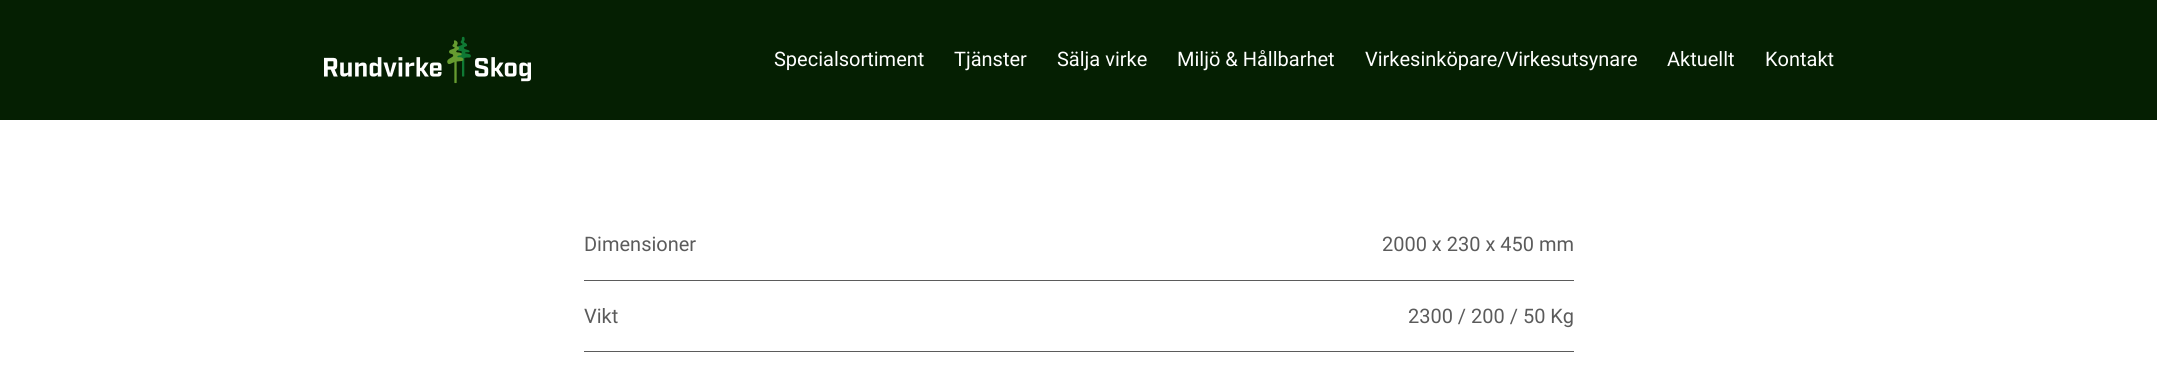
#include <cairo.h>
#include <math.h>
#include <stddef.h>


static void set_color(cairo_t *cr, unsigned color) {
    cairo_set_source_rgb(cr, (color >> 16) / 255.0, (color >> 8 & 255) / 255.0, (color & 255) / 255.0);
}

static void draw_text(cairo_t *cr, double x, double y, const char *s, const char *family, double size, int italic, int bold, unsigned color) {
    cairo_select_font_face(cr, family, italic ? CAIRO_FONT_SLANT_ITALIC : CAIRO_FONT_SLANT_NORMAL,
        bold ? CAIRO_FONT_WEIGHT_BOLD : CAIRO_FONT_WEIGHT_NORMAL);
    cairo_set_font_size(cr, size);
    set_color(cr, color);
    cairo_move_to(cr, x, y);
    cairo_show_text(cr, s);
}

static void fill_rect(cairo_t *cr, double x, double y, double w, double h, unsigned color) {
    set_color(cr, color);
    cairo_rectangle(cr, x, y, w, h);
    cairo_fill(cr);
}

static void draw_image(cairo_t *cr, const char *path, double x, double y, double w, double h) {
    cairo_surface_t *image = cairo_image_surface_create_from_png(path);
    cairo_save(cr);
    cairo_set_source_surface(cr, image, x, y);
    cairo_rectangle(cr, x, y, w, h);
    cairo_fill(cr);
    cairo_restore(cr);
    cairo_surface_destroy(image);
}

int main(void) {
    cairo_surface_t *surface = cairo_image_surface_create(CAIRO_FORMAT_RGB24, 2157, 386);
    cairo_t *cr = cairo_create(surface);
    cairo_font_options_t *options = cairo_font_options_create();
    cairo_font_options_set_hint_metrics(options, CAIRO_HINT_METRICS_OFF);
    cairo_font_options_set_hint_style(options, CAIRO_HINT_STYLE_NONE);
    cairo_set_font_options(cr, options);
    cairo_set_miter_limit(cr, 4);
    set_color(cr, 0xFFFFFF);
    cairo_paint(cr);
    fill_rect(cr, 0, 0, 2157, 120, 0x051F02);
    draw_image(cr, "assets/img1.png", 324, 36, 207, 48);
    draw_text(cr, 774, 66, "Specialsortiment", "Roboto", 20, 0, 0, 0xFFFFFF);
    draw_text(cr, 954, 66, "Tjänster", "Roboto", 20, 0, 0, 0xFFFFFF);
    draw_text(cr, 1057, 66, "Sälja virke", "Roboto", 20, 0, 0, 0xFFFFFF);
    draw_text(cr, 1177, 66, "Miljö & Hållbarhet", "Roboto", 20, 0, 0, 0xFFFFFF);
    draw_text(cr, 1365, 66, "Virkesinköpare/Virkesutsynare", "Roboto", 20, 0, 0, 0xFFFFFF);
    draw_text(cr, 1667, 66, "Aktuellt", "Roboto", 20, 0, 0, 0xFFFFFF);
    draw_text(cr, 1765, 66, "Kontakt", "Roboto", 20, 0, 0, 0xFFFFFF);
    draw_text(cr, 584, 251, "Dimensioner", "Roboto", 20, 0, 0, 0x5B5B5B);
    fill_rect(cr, 584, 280, 990, 1, 0x5B5B5B);
    draw_text(cr, 1382, 251, "2000 x 230 x 450 mm", "Roboto", 20, 0, 0, 0x5B5B5B);
    draw_text(cr, 584, 323, "Vikt", "Roboto", 20, 0, 0, 0x5B5B5B);
    fill_rect(cr, 584, 351, 990, 1, 0x5B5B5B);
    draw_text(cr, 1408, 323, "2300 / 200 / 50 Kg", "Roboto", 20, 0, 0, 0x5B5B5B);
    cairo_surface_write_to_png(surface, "output.png");
    cairo_font_options_destroy(options);
    cairo_destroy(cr);
    cairo_surface_destroy(surface);
    return 0;
}
